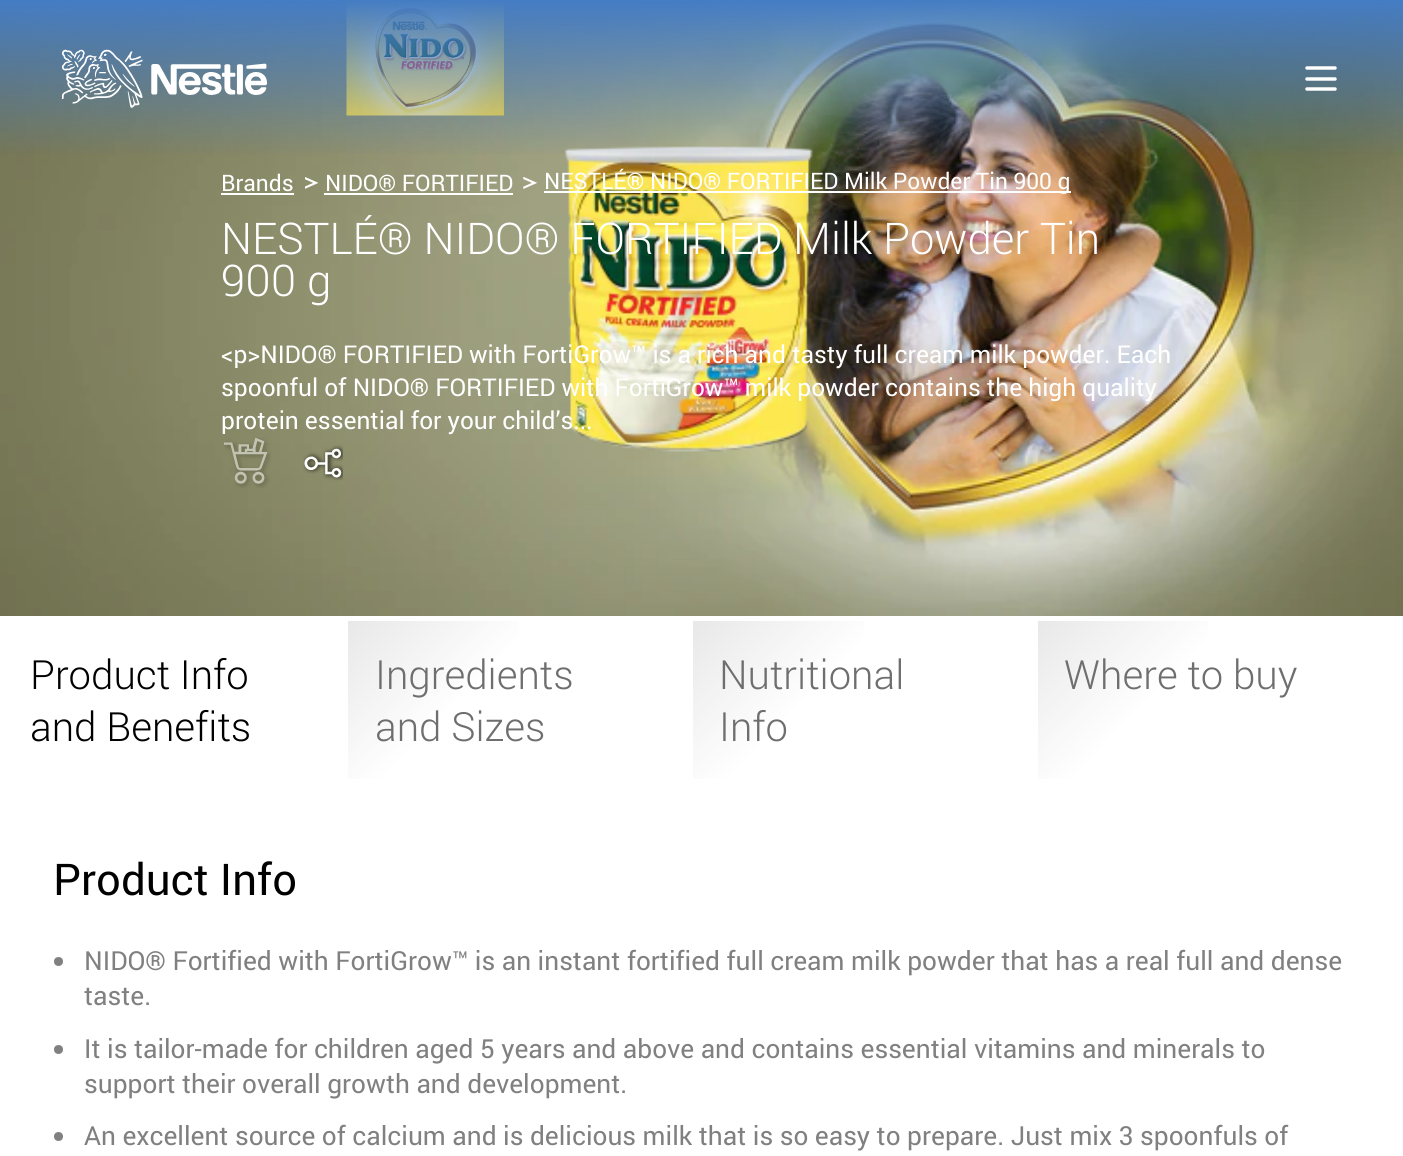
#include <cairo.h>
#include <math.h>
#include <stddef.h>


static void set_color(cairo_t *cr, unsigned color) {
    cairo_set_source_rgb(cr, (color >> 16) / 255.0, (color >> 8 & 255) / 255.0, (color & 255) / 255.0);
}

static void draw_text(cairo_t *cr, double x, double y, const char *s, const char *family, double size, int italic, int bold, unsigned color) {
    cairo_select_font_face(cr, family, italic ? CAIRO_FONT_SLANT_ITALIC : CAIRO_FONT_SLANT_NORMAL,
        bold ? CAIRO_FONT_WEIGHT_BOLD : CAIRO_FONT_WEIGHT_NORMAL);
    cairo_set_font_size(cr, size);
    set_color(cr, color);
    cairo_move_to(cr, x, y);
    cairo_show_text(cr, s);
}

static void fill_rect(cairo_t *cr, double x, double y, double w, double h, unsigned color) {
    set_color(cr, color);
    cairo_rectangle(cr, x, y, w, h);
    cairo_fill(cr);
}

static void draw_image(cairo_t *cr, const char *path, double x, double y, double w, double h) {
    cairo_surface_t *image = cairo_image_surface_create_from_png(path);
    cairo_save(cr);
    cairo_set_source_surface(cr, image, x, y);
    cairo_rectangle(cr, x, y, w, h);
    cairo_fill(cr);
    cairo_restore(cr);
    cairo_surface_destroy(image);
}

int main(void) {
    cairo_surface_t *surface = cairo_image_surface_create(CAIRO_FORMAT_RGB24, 1403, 1156);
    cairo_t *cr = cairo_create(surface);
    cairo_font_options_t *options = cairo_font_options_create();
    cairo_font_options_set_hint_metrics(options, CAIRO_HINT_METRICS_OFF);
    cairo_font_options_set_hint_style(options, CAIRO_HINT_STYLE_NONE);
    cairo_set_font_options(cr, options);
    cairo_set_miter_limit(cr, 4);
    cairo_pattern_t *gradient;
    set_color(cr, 0xFFFFFF);
    cairo_paint(cr);
    draw_image(cr, "assets/img3.png", 0, 0, 1403, 616);
    draw_image(cr, "assets/img4.png", 565, 146, 248, 306);
    draw_image(cr, "assets/img5.png", 346, 0, 158, 116);
    draw_image(cr, "assets/img1.png", 0, 0, 1403, 154);
    draw_image(cr, "assets/img2.png", 61, 49, 206, 59);
    cairo_new_path(cr);
    cairo_move_to(cr, 1307, 68);
    cairo_line_to(cr, 1335, 68);
    cairo_move_to(cr, 1307, 79);
    cairo_line_to(cr, 1335, 79);
    cairo_move_to(cr, 1307, 89);
    cairo_line_to(cr, 1335, 89);
    set_color(cr, 0xFFFFFF);
    cairo_set_line_width(cr, 3.5);
    cairo_set_line_cap(cr, CAIRO_LINE_CAP_ROUND);
    cairo_set_line_join(cr, CAIRO_LINE_JOIN_ROUND);
    cairo_stroke(cr);
    draw_image(cr, "assets/img6.png", 305, 177, 14, 12);
    draw_text(cr, 221, 191, "Brands", "Roboto", 22.75, 0, 0, 0xFFFFFF);
    fill_rect(cr, 221, 193, 73, 2, 0xFFFFFF);
    draw_image(cr, "assets/img7.png", 523, 177, 14, 12);
    draw_text(cr, 325, 191, "NIDO® FORTIFIED", "Roboto", 22.75, 0, 0, 0xFFFFFF);
    fill_rect(cr, 324, 193, 189, 2, 0xFFFFFF);
    fill_rect(cr, 544, 191, 527, 2, 0xFFFFFF);
    draw_text(cr, 544, 189, "NESTLÉ® NIDO® FORTIFIED Milk Powder Tin 900 g", "Roboto", 22.75, 0, 0, 0xFFFFFF);
    draw_text(cr, 221, 254, "NESTLÉ® NIDO® FORTIFIED Milk Powder Tin", "Roboto Light", 43.75, 0, 0, 0xFFFFFF);
    draw_text(cr, 221, 296, "900 g", "Roboto Light", 43.75, 0, 0, 0xFFFFFF);
    draw_text(cr, 221, 363, "<p>NIDO® FORTIFIED with FortiGrow™ is a rich and tasty full cream milk powder. Each", "Roboto", 24.5, 0, 0, 0xFFFFFF);
    draw_text(cr, 221, 396, "spoonful of NIDO® FORTIFIED with FortiGrow™ milk powder contains the high quality", "Roboto", 24.5, 0, 0, 0xFFFFFF);
    draw_text(cr, 221, 429, "protein essential for your child’s...", "Roboto", 24.5, 0, 0, 0xFFFFFF);
    draw_image(cr, "assets/img8.png", 224, 437, 47, 51);
    draw_image(cr, "assets/img9.png", 303, 445, 40, 36);
    draw_text(cr, 30, 689, "Product Info", "Roboto Light", 40.25, 0, 0, 0x000000);
    draw_text(cr, 30, 741, "and Benefits", "Roboto Light", 40.25, 0, 0, 0x000000);
    gradient = cairo_pattern_create_linear(396, 574, 649, 826);
    cairo_pattern_add_color_stop_rgba(gradient, 0, 0.91, 0.91, 0.91, 1);
    cairo_pattern_add_color_stop_rgba(gradient, 0.38, 1, 1, 1, 1);
    cairo_pattern_add_color_stop_rgba(gradient, 1, 1, 1, 1, 1);
    cairo_set_source(cr, gradient);
    cairo_pattern_destroy(gradient);
    cairo_rectangle(cr, 348, 621, 171, 158);
    cairo_fill(cr);
    draw_text(cr, 375, 689, "Ingredients", "Roboto Light", 40.25, 0, 0, 0x6E6E6E);
    draw_text(cr, 375, 741, "and Sizes", "Roboto Light", 40.25, 0, 0, 0x6E6E6E);
    gradient = cairo_pattern_create_linear(741, 574, 994, 826);
    cairo_pattern_add_color_stop_rgba(gradient, 0, 0.91, 0.91, 0.91, 1);
    cairo_pattern_add_color_stop_rgba(gradient, 0.38, 1, 1, 1, 1);
    cairo_pattern_add_color_stop_rgba(gradient, 1, 1, 1, 1, 1);
    cairo_set_source(cr, gradient);
    cairo_pattern_destroy(gradient);
    cairo_rectangle(cr, 693, 621, 171, 158);
    cairo_fill(cr);
    draw_text(cr, 719, 689, "Nutritional", "Roboto Light", 40.25, 0, 0, 0x6E6E6E);
    draw_text(cr, 719, 741, "Info", "Roboto Light", 40.25, 0, 0, 0x6E6E6E);
    gradient = cairo_pattern_create_linear(1085, 574, 1338, 826);
    cairo_pattern_add_color_stop_rgba(gradient, 0, 0.91, 0.91, 0.91, 1);
    cairo_pattern_add_color_stop_rgba(gradient, 0.38, 1, 1, 1, 1);
    cairo_pattern_add_color_stop_rgba(gradient, 1, 1, 1, 1, 1);
    cairo_set_source(cr, gradient);
    cairo_pattern_destroy(gradient);
    cairo_rectangle(cr, 1038, 621, 170, 158);
    cairo_fill(cr);
    draw_text(cr, 1064, 689, "Where to buy", "Roboto Light", 40.25, 0, 0, 0x6E6E6E);
    draw_text(cr, 53, 895, "Product Info", "Roboto", 43.75, 0, 0, 0x000000);
    set_color(cr, 0x808080);
    cairo_new_path(cr);
    cairo_arc(cr, 58.5, 961.5, 4.5, 0, 2 * M_PI);
    cairo_fill(cr);
    draw_text(cr, 84, 970, "NIDO® Fortified with FortiGrow™ is an instant fortified full cream milk powder that has a real full and dense", "Roboto", 26.25, 0, 0, 0x808080);
    draw_text(cr, 84, 1005, "taste.", "Roboto", 26.25, 0, 0, 0x808080);
    cairo_new_path(cr);
    cairo_arc(cr, 58.5, 1049.5, 4.5, 0, 2 * M_PI);
    cairo_fill(cr);
    draw_text(cr, 84, 1058, "It is tailor-made for children aged 5 years and above and contains essential vitamins and minerals to", "Roboto", 26.25, 0, 0, 0x808080);
    draw_text(cr, 84, 1093, "support their overall growth and development.", "Roboto", 26.25, 0, 0, 0x808080);
    cairo_new_path(cr);
    cairo_arc(cr, 58.5, 1136.5, 4.5, 0, 2 * M_PI);
    cairo_fill(cr);
    draw_text(cr, 84, 1145, "An excellent source of calcium and is delicious milk that is so easy to prepare. Just mix 3 spoonfuls of", "Roboto", 26.25, 0, 0, 0x808080);
    cairo_surface_write_to_png(surface, "output.png");
    cairo_font_options_destroy(options);
    cairo_destroy(cr);
    cairo_surface_destroy(surface);
    return 0;
}
